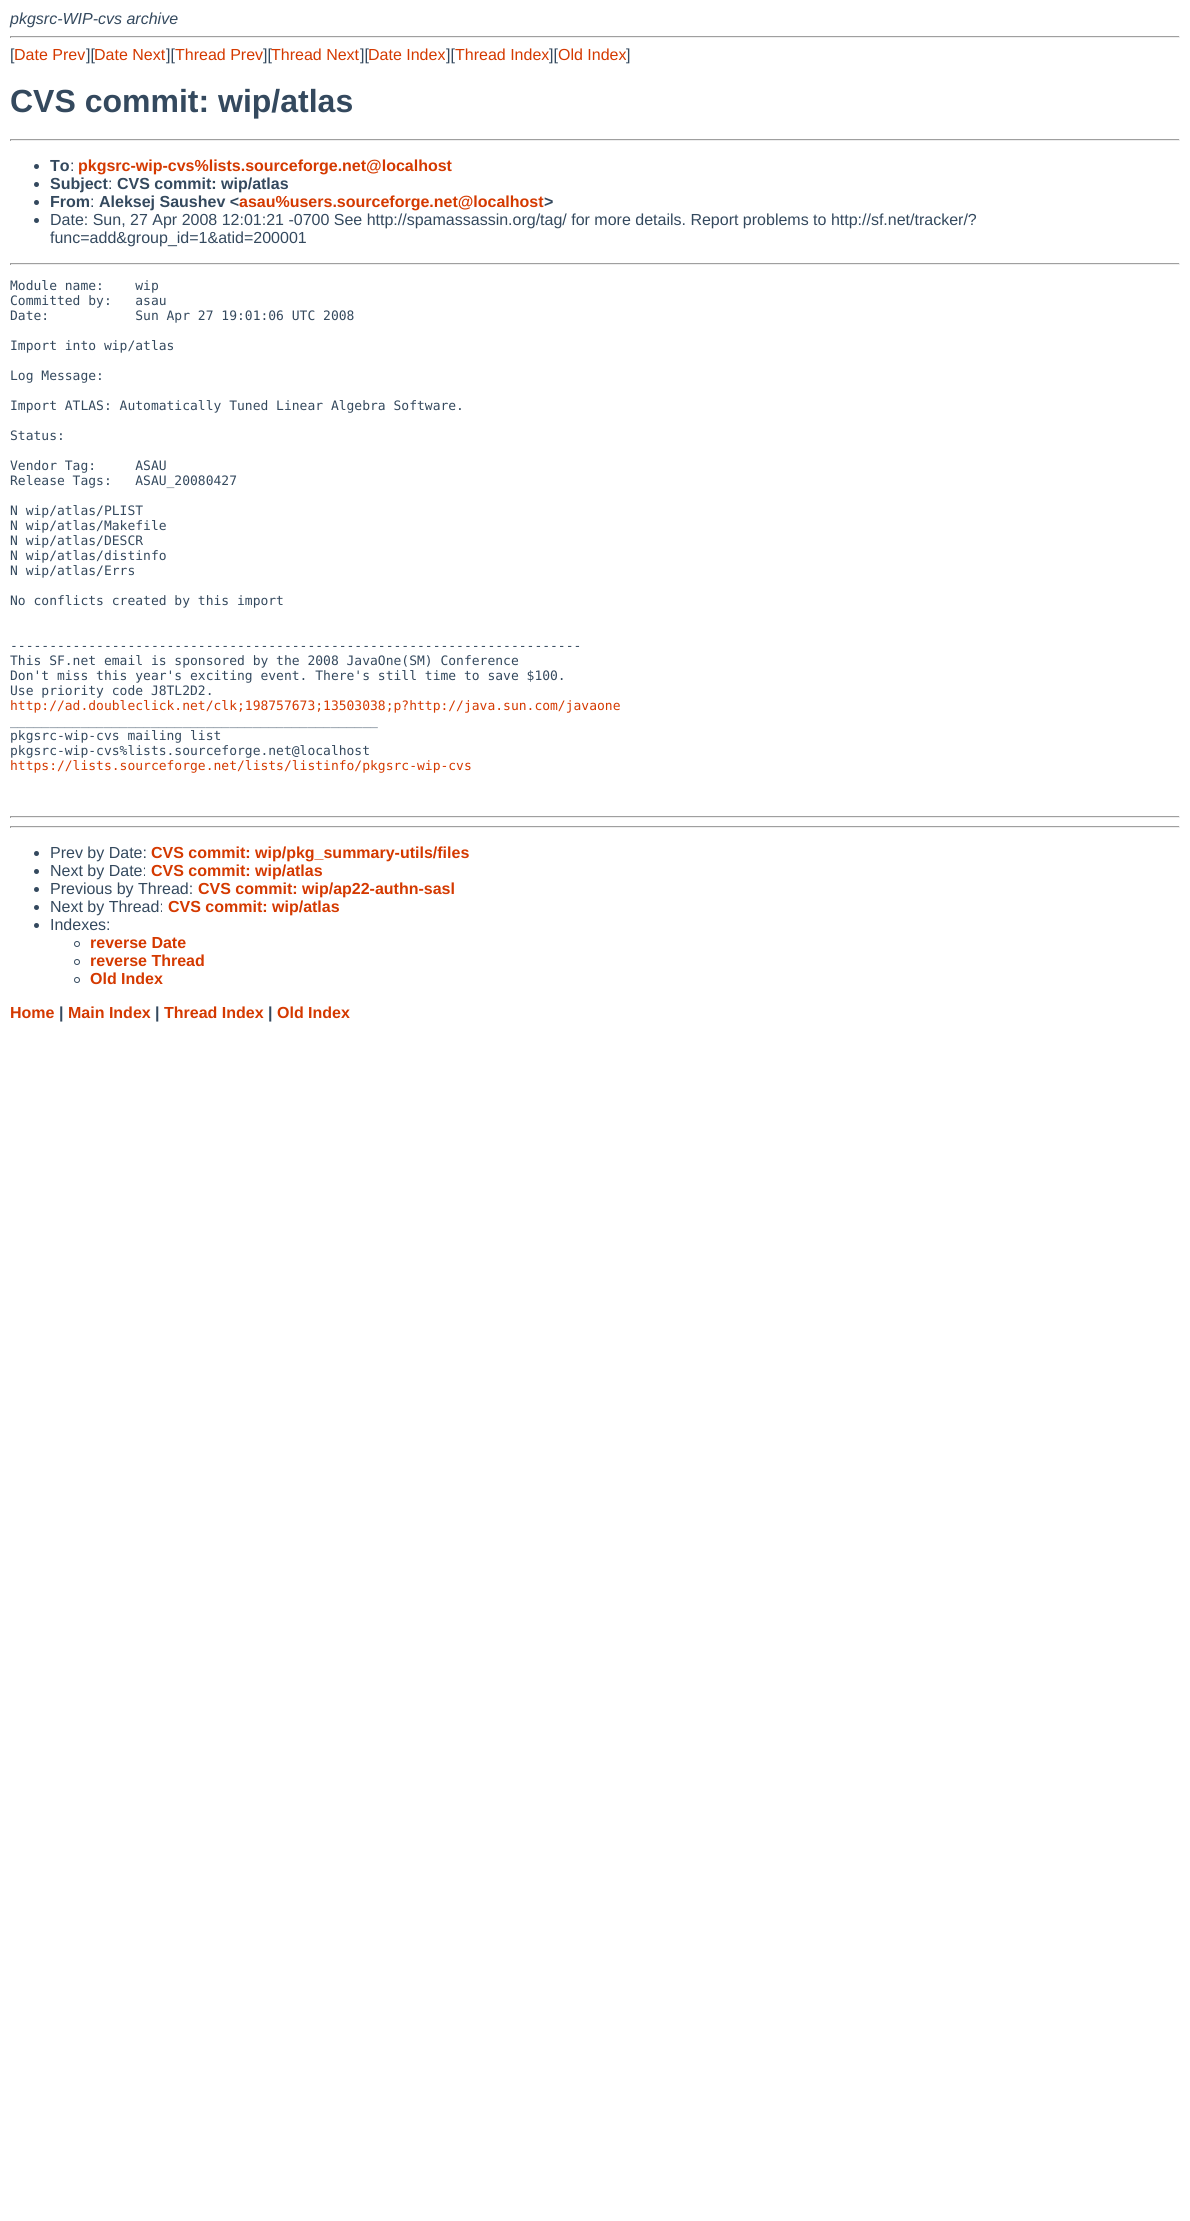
#include <cairo.h>
#include <math.h>
#include <stddef.h>


static void set_color(cairo_t *cr, unsigned color) {
    cairo_set_source_rgb(cr, (color >> 16) / 255.0, (color >> 8 & 255) / 255.0, (color & 255) / 255.0);
}

static void draw_text(cairo_t *cr, double x, double y, const char *s, const char *family, double size, int italic, int bold, unsigned color) {
    cairo_select_font_face(cr, family, italic ? CAIRO_FONT_SLANT_ITALIC : CAIRO_FONT_SLANT_NORMAL,
        bold ? CAIRO_FONT_WEIGHT_BOLD : CAIRO_FONT_WEIGHT_NORMAL);
    cairo_set_font_size(cr, size);
    set_color(cr, color);
    cairo_move_to(cr, x, y);
    cairo_show_text(cr, s);
}

static void fill_rect(cairo_t *cr, double x, double y, double w, double h, unsigned color) {
    set_color(cr, color);
    cairo_rectangle(cr, x, y, w, h);
    cairo_fill(cr);
}

int main(void) {
    cairo_surface_t *surface = cairo_image_surface_create(CAIRO_FORMAT_RGB24, 1190, 2221);
    cairo_t *cr = cairo_create(surface);
    cairo_font_options_t *options = cairo_font_options_create();
    cairo_font_options_set_hint_metrics(options, CAIRO_HINT_METRICS_OFF);
    cairo_font_options_set_hint_style(options, CAIRO_HINT_STYLE_NONE);
    cairo_set_font_options(cr, options);
    cairo_set_miter_limit(cr, 4);
    set_color(cr, 0xFFFFFF);
    cairo_paint(cr);
    draw_text(cr, 10, 24, "pkgsrc-WIP-cvs archive", "Liberation Sans", 16, 1, 0, 0x34495E);
    fill_rect(cr, 10, 36, 1170, 1, 0x9F9F9F);
    fill_rect(cr, 1179, 36, 1, 2, 0xEEEEEE);
    fill_rect(cr, 10, 37, 1170, 1, 0xEEEEEE);
    fill_rect(cr, 10, 36, 1, 2, 0x9F9F9F);
    draw_text(cr, 10, 60, "[", "Liberation Sans", 16, 0, 0, 0x34495E);
    draw_text(cr, 14, 60, "Date Prev", "Liberation Sans", 16, 0, 0, 0xD43900);
    draw_text(cr, 86, 60, "][", "Liberation Sans", 16, 0, 0, 0x34495E);
    draw_text(cr, 94, 60, "Date Next", "Liberation Sans", 16, 0, 0, 0xD43900);
    draw_text(cr, 166, 60, "][", "Liberation Sans", 16, 0, 0, 0x34495E);
    draw_text(cr, 175, 60, "Thread Prev", "Liberation Sans", 16, 0, 0, 0xD43900);
    draw_text(cr, 263, 60, "][", "Liberation Sans", 16, 0, 0, 0x34495E);
    draw_text(cr, 271, 60, "Thread Next", "Liberation Sans", 16, 0, 0, 0xD43900);
    draw_text(cr, 360, 60, "][", "Liberation Sans", 16, 0, 0, 0x34495E);
    draw_text(cr, 368, 60, "Date Index", "Liberation Sans", 16, 0, 0, 0xD43900);
    draw_text(cr, 446, 60, "][", "Liberation Sans", 16, 0, 0, 0x34495E);
    draw_text(cr, 455, 60, "Thread Index", "Liberation Sans", 16, 0, 0, 0xD43900);
    draw_text(cr, 549, 60, "][", "Liberation Sans", 16, 0, 0, 0x34495E);
    draw_text(cr, 558, 60, "Old Index", "Liberation Sans", 16, 0, 0, 0xD43900);
    draw_text(cr, 626, 60, "]", "Liberation Sans", 16, 0, 0, 0x34495E);
    draw_text(cr, 10, 112, "CVS commit: wip/atlas", "Liberation Sans", 32, 0, 1, 0x34495E);
    fill_rect(cr, 10, 139, 1170, 1, 0x9F9F9F);
    fill_rect(cr, 1179, 139, 1, 2, 0xEEEEEE);
    fill_rect(cr, 10, 140, 1170, 1, 0xEEEEEE);
    fill_rect(cr, 10, 139, 1, 2, 0x9F9F9F);
    set_color(cr, 0x34495E);
    cairo_new_path(cr);
    cairo_arc(cr, 36.5, 166.5, 2.5, 0, 2 * M_PI);
    cairo_fill(cr);
    draw_text(cr, 50, 171, "To", "Liberation Sans", 16, 0, 1, 0x34495E);
    draw_text(cr, 70, 171, ":", "Liberation Sans", 16, 0, 0, 0x34495E);
    draw_text(cr, 78, 171, "pkgsrc-wip-cvs%lists.sourceforge.net@localhost", "Liberation Sans", 16, 0, 1, 0xD43900);
    set_color(cr, 0x34495E);
    cairo_new_path(cr);
    cairo_arc(cr, 36.5, 184.5, 2.5, 0, 2 * M_PI);
    cairo_fill(cr);
    draw_text(cr, 50, 189, "Subject", "Liberation Sans", 16, 0, 1, 0x34495E);
    draw_text(cr, 108, 189, ":", "Liberation Sans", 16, 0, 0, 0x34495E);
    draw_text(cr, 117, 189, "CVS commit: wip/atlas", "Liberation Sans", 16, 0, 1, 0x34495E);
    cairo_new_path(cr);
    cairo_arc(cr, 36.5, 202.5, 2.5, 0, 2 * M_PI);
    cairo_fill(cr);
    draw_text(cr, 50, 207, "From", "Liberation Sans", 16, 0, 1, 0x34495E);
    draw_text(cr, 90, 207, ":", "Liberation Sans", 16, 0, 0, 0x34495E);
    draw_text(cr, 99, 207, "Aleksej Saushev <", "Liberation Sans", 16, 0, 1, 0x34495E);
    draw_text(cr, 239, 207, "asau%users.sourceforge.net@localhost", "Liberation Sans", 16, 0, 1, 0xD43900);
    draw_text(cr, 544, 207, ">", "Liberation Sans", 16, 0, 1, 0x34495E);
    cairo_new_path(cr);
    cairo_arc(cr, 36.5, 220.5, 2.5, 0, 2 * M_PI);
    cairo_fill(cr);
    draw_text(cr, 50, 225, "Date: Sun, 27 Apr 2008 12:01:21 -0700 See http://spamassassin.org/tag/ for more details. Report problems to http://sf.net/tracker/?", "Liberation Sans", 16, 0, 0, 0x34495E);
    draw_text(cr, 50, 243, "func=add&group_id=1&atid=200001", "Liberation Sans", 16, 0, 0, 0x34495E);
    fill_rect(cr, 10, 263, 1170, 1, 0x9F9F9F);
    fill_rect(cr, 1179, 263, 1, 2, 0xEEEEEE);
    fill_rect(cr, 10, 264, 1170, 1, 0xEEEEEE);
    fill_rect(cr, 10, 263, 1, 2, 0x9F9F9F);
    draw_text(cr, 10, 290, "Module name:    wip", "DejaVu Sans Mono", 13, 0, 0, 0x34495E);
    draw_text(cr, 10, 305, "Committed by:   asau", "DejaVu Sans Mono", 13, 0, 0, 0x34495E);
    draw_text(cr, 10, 320, "Date:           Sun Apr 27 19:01:06 UTC 2008", "DejaVu Sans Mono", 13, 0, 0, 0x34495E);
    draw_text(cr, 10, 350, "Import into wip/atlas", "DejaVu Sans Mono", 13, 0, 0, 0x34495E);
    draw_text(cr, 10, 380, "Log Message:", "DejaVu Sans Mono", 13, 0, 0, 0x34495E);
    draw_text(cr, 10, 410, "Import ATLAS: Automatically Tuned Linear Algebra Software.", "DejaVu Sans Mono", 13, 0, 0, 0x34495E);
    draw_text(cr, 10, 440, "Status:", "DejaVu Sans Mono", 13, 0, 0, 0x34495E);
    draw_text(cr, 10, 470, "Vendor Tag:     ASAU", "DejaVu Sans Mono", 13, 0, 0, 0x34495E);
    draw_text(cr, 10, 485, "Release Tags:   ASAU_20080427", "DejaVu Sans Mono", 13, 0, 0, 0x34495E);
    draw_text(cr, 10, 515, "N wip/atlas/PLIST", "DejaVu Sans Mono", 13, 0, 0, 0x34495E);
    draw_text(cr, 10, 530, "N wip/atlas/Makefile", "DejaVu Sans Mono", 13, 0, 0, 0x34495E);
    draw_text(cr, 10, 545, "N wip/atlas/DESCR", "DejaVu Sans Mono", 13, 0, 0, 0x34495E);
    draw_text(cr, 10, 560, "N wip/atlas/distinfo", "DejaVu Sans Mono", 13, 0, 0, 0x34495E);
    draw_text(cr, 10, 575, "N wip/atlas/Errs", "DejaVu Sans Mono", 13, 0, 0, 0x34495E);
    draw_text(cr, 10, 605, "No conflicts created by this import", "DejaVu Sans Mono", 13, 0, 0, 0x34495E);
    draw_text(cr, 10, 650, "-------------------------------------------------------------------------", "DejaVu Sans Mono", 13, 0, 0, 0x34495E);
    draw_text(cr, 10, 665, "This SF.net email is sponsored by the 2008 JavaOne(SM) Conference", "DejaVu Sans Mono", 13, 0, 0, 0x34495E);
    draw_text(cr, 10, 680, "Don't miss this year's exciting event. There's still time to save $100.", "DejaVu Sans Mono", 13, 0, 0, 0x34495E);
    draw_text(cr, 10, 695, "Use priority code J8TL2D2.", "DejaVu Sans Mono", 13, 0, 0, 0x34495E);
    draw_text(cr, 10, 710, "http://ad.doubleclick.net/clk;198757673;13503038;p?http://java.sun.com/javaone", "DejaVu Sans Mono", 13, 0, 0, 0xD43900);
    draw_text(cr, 10, 725, "_______________________________________________", "DejaVu Sans Mono", 13, 0, 0, 0x34495E);
    draw_text(cr, 10, 740, "pkgsrc-wip-cvs mailing list", "DejaVu Sans Mono", 13, 0, 0, 0x34495E);
    draw_text(cr, 10, 755, "pkgsrc-wip-cvs%lists.sourceforge.net@localhost", "DejaVu Sans Mono", 13, 0, 0, 0x34495E);
    draw_text(cr, 10, 770, "https://lists.sourceforge.net/lists/listinfo/pkgsrc-wip-cvs", "DejaVu Sans Mono", 13, 0, 0, 0xD43900);
    fill_rect(cr, 10, 816, 1170, 1, 0x9F9F9F);
    fill_rect(cr, 1179, 816, 1, 2, 0xEEEEEE);
    fill_rect(cr, 10, 817, 1170, 1, 0xEEEEEE);
    fill_rect(cr, 10, 816, 1, 2, 0x9F9F9F);
    fill_rect(cr, 10, 826, 1170, 1, 0x9F9F9F);
    fill_rect(cr, 1179, 826, 1, 2, 0xEEEEEE);
    fill_rect(cr, 10, 827, 1170, 1, 0xEEEEEE);
    fill_rect(cr, 10, 826, 1, 2, 0x9F9F9F);
    set_color(cr, 0x34495E);
    cairo_new_path(cr);
    cairo_arc(cr, 36.5, 853.5, 2.5, 0, 2 * M_PI);
    cairo_fill(cr);
    draw_text(cr, 50, 858, "Prev by Date:", "Liberation Sans", 16, 0, 0, 0x34495E);
    draw_text(cr, 151, 858, "CVS commit: wip/pkg_summary-utils/files", "Liberation Sans", 16, 0, 1, 0xD43900);
    set_color(cr, 0x34495E);
    cairo_new_path(cr);
    cairo_arc(cr, 36.5, 871.5, 2.5, 0, 2 * M_PI);
    cairo_fill(cr);
    draw_text(cr, 50, 876, "Next by Date:", "Liberation Sans", 16, 0, 0, 0x34495E);
    draw_text(cr, 151, 876, "CVS commit: wip/atlas", "Liberation Sans", 16, 0, 1, 0xD43900);
    set_color(cr, 0x34495E);
    cairo_new_path(cr);
    cairo_arc(cr, 36.5, 889.5, 2.5, 0, 2 * M_PI);
    cairo_fill(cr);
    draw_text(cr, 50, 894, "Previous by Thread:", "Liberation Sans", 16, 0, 0, 0x34495E);
    draw_text(cr, 198, 894, "CVS commit: wip/ap22-authn-sasl", "Liberation Sans", 16, 0, 1, 0xD43900);
    set_color(cr, 0x34495E);
    cairo_new_path(cr);
    cairo_arc(cr, 36.5, 907.5, 2.5, 0, 2 * M_PI);
    cairo_fill(cr);
    draw_text(cr, 50, 912, "Next by Thread:", "Liberation Sans", 16, 0, 0, 0x34495E);
    draw_text(cr, 168, 912, "CVS commit: wip/atlas", "Liberation Sans", 16, 0, 1, 0xD43900);
    set_color(cr, 0x34495E);
    cairo_new_path(cr);
    cairo_arc(cr, 36.5, 925.5, 2.5, 0, 2 * M_PI);
    cairo_fill(cr);
    draw_text(cr, 50, 930, "Indexes:", "Liberation Sans", 16, 0, 0, 0x34495E);
    cairo_new_path(cr);
    cairo_arc(cr, 77, 944, 2.5, 0, 2 * M_PI);
    cairo_set_line_width(cr, 1);
    cairo_stroke(cr);
    draw_text(cr, 90, 948, "reverse Date", "Liberation Sans", 16, 0, 1, 0xD43900);
    cairo_new_path(cr);
    cairo_arc(cr, 77, 962, 2.5, 0, 2 * M_PI);
    set_color(cr, 0x34495E);
    cairo_stroke(cr);
    draw_text(cr, 90, 966, "reverse Thread", "Liberation Sans", 16, 0, 1, 0xD43900);
    cairo_new_path(cr);
    cairo_arc(cr, 77, 980, 2.5, 0, 2 * M_PI);
    set_color(cr, 0x34495E);
    cairo_stroke(cr);
    draw_text(cr, 90, 984, "Old Index", "Liberation Sans", 16, 0, 1, 0xD43900);
    draw_text(cr, 10, 1018, "Home", "Liberation Sans", 16, 0, 1, 0xD43900);
    draw_text(cr, 59, 1018, "|", "Liberation Sans", 16, 0, 1, 0x34495E);
    draw_text(cr, 68, 1018, "Main Index", "Liberation Sans", 16, 0, 1, 0xD43900);
    draw_text(cr, 155, 1018, "|", "Liberation Sans", 16, 0, 1, 0x34495E);
    draw_text(cr, 164, 1018, "Thread Index", "Liberation Sans", 16, 0, 1, 0xD43900);
    draw_text(cr, 268, 1018, "|", "Liberation Sans", 16, 0, 1, 0x34495E);
    draw_text(cr, 277, 1018, "Old Index", "Liberation Sans", 16, 0, 1, 0xD43900);
    cairo_surface_write_to_png(surface, "output.png");
    cairo_font_options_destroy(options);
    cairo_destroy(cr);
    cairo_surface_destroy(surface);
    return 0;
}
